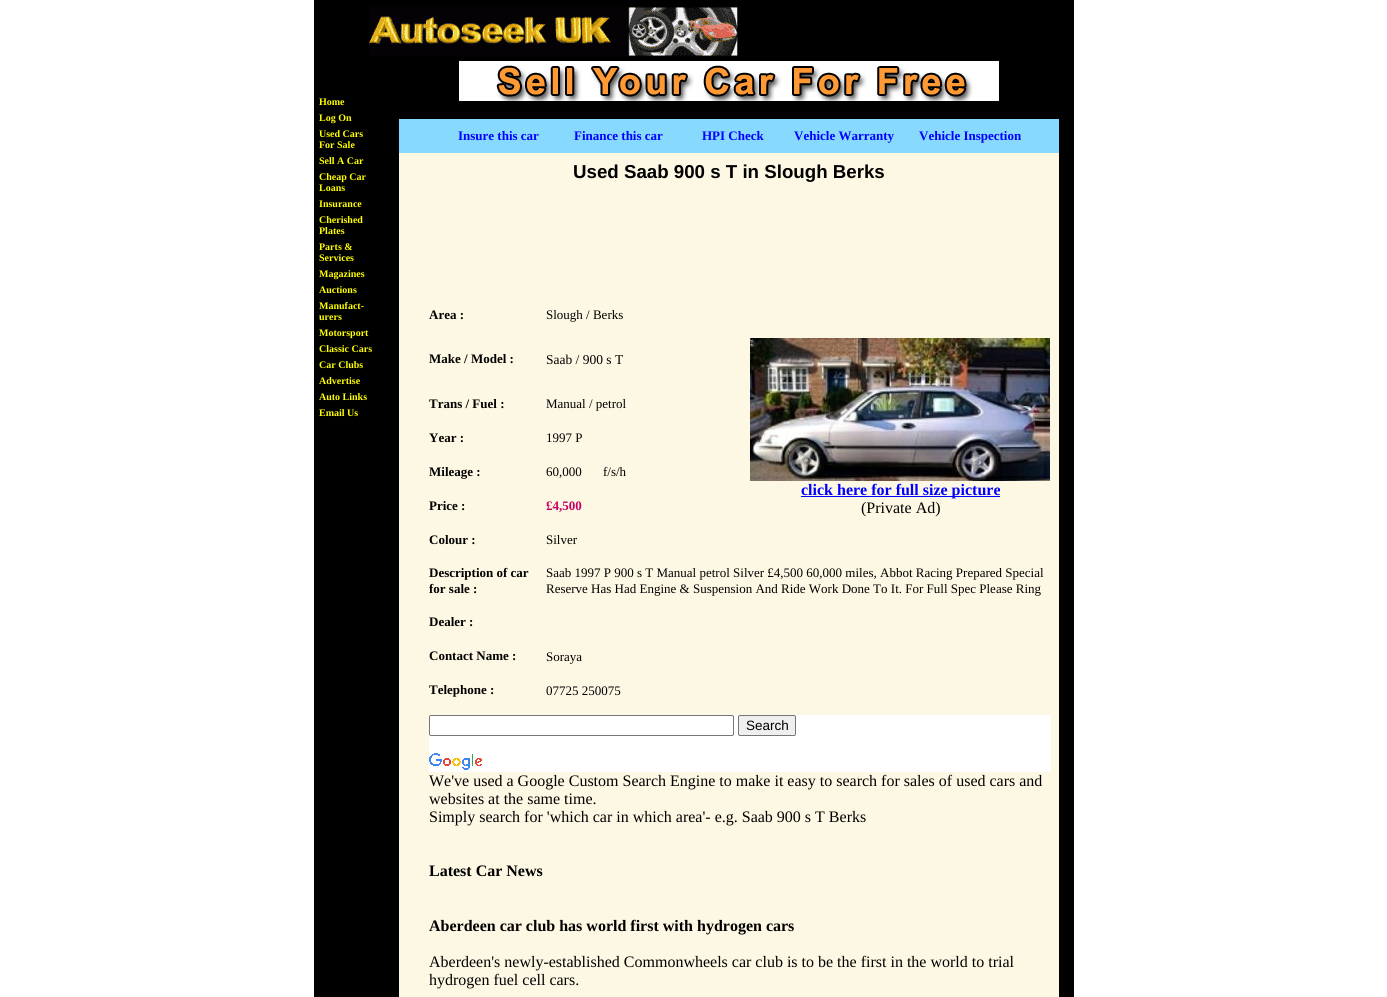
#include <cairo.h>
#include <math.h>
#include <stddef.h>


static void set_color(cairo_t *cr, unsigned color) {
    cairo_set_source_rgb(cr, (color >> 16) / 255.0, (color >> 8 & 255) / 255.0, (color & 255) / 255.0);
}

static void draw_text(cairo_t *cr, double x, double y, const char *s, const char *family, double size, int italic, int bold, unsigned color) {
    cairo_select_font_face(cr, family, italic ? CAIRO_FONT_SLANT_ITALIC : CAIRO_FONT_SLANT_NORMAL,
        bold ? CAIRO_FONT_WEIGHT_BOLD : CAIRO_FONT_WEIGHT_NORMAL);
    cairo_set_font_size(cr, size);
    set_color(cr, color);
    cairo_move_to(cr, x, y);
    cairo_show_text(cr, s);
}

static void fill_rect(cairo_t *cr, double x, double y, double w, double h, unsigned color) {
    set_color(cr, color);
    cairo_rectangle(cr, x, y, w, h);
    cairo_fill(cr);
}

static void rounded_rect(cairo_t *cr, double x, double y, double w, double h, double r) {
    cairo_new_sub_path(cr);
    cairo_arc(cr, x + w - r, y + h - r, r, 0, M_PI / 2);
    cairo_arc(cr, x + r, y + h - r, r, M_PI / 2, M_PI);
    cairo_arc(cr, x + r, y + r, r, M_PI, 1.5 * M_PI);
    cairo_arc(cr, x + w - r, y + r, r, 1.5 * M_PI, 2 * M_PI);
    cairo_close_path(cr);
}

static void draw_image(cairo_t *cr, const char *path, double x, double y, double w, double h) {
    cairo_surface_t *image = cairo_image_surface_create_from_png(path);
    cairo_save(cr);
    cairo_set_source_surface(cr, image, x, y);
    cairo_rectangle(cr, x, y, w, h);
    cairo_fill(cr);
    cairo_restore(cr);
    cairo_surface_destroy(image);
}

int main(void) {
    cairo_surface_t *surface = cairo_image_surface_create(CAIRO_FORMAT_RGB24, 1387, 997);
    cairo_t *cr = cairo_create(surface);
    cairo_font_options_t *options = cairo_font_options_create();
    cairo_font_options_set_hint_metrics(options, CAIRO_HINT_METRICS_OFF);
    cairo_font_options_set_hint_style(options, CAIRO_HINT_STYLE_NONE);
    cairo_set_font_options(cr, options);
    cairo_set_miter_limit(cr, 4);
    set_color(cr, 0xFFFFFF);
    cairo_paint(cr);
    fill_rect(cr, 314, 0, 760, 997, 0x000000);
    draw_image(cr, "assets/img1.png", 369, 7, 369, 49);
    draw_text(cr, 319, 105, "Home", "Liberation Serif", 10, 0, 1, 0xFFFF00);
    draw_text(cr, 319, 121, "Log On", "Liberation Serif", 10, 0, 1, 0xFFFF00);
    draw_text(cr, 319, 137, "Used Cars", "Liberation Serif", 10, 0, 1, 0xFFFF00);
    draw_text(cr, 319, 148, "For Sale", "Liberation Serif", 10, 0, 1, 0xFFFF00);
    draw_text(cr, 319, 164, "Sell A Car", "Liberation Serif", 10, 0, 1, 0xFFFF00);
    draw_text(cr, 319, 180, "Cheap Car", "Liberation Serif", 10, 0, 1, 0xFFFF00);
    draw_text(cr, 319, 191, "Loans", "Liberation Serif", 10, 0, 1, 0xFFFF00);
    draw_text(cr, 319, 207, "Insurance", "Liberation Serif", 10, 0, 1, 0xFFFF00);
    draw_text(cr, 319, 223, "Cherished", "Liberation Serif", 10, 0, 1, 0xFFFF00);
    draw_text(cr, 319, 234, "Plates", "Liberation Serif", 10, 0, 1, 0xFFFF00);
    draw_text(cr, 319, 250, "Parts &", "Liberation Serif", 10, 0, 1, 0xFFFF00);
    draw_text(cr, 319, 261, "Services", "Liberation Serif", 10, 0, 1, 0xFFFF00);
    draw_text(cr, 319, 277, "Magazines", "Liberation Serif", 10, 0, 1, 0xFFFF00);
    draw_text(cr, 319, 293, "Auctions", "Liberation Serif", 10, 0, 1, 0xFFFF00);
    draw_text(cr, 319, 309, "Manufact-", "Liberation Serif", 10, 0, 1, 0xFFFF00);
    draw_text(cr, 319, 320, "urers", "Liberation Serif", 10, 0, 1, 0xFFFF00);
    draw_text(cr, 319, 336, "Motorsport", "Liberation Serif", 10, 0, 1, 0xFFFF00);
    draw_text(cr, 319, 352, "Classic Cars", "Liberation Serif", 10, 0, 1, 0xFFFF00);
    draw_text(cr, 319, 368, "Car Clubs", "Liberation Serif", 10, 0, 1, 0xFFFF00);
    draw_text(cr, 319, 384, "Advertise", "Liberation Serif", 10, 0, 1, 0xFFFF00);
    draw_text(cr, 319, 400, "Auto Links", "Liberation Serif", 10, 0, 1, 0xFFFF00);
    draw_text(cr, 319, 416, "Email Us", "Liberation Serif", 10, 0, 1, 0xFFFF00);
    draw_image(cr, "assets/img2.png", 459, 61, 540, 40);
    fill_rect(cr, 399, 153, 660, 844, 0xFDF8E3);
    fill_rect(cr, 399, 119, 660, 34, 0x87DAFE);
    draw_text(cr, 458, 140, "Insure this car", "Liberation Serif", 13, 0, 1, 0x0000FF);
    draw_text(cr, 574, 140, "Finance this car", "Liberation Serif", 13, 0, 1, 0x0000FF);
    draw_text(cr, 702, 140, "HPI Check", "Liberation Serif", 13, 0, 1, 0x0000FF);
    draw_text(cr, 794, 140, "Vehicle Warranty", "Liberation Serif", 13, 0, 1, 0x0000FF);
    draw_text(cr, 919, 140, "Vehicle Inspection", "Liberation Serif", 13, 0, 1, 0x0000FF);
    draw_text(cr, 573, 178, "Used Saab 900 s T in Slough Berks", "Liberation Sans", 18.7, 0, 1, 0x000000);
    draw_text(cr, 429, 319, "Area :", "Liberation Serif", 13, 0, 1, 0x000000);
    draw_text(cr, 546, 319, "Slough / Berks", "Liberation Serif", 13, 0, 0, 0x000000);
    draw_image(cr, "assets/img3.png", 750, 338, 300, 143);
    fill_rect(cr, 801, 496, 199, 1, 0x0000FF);
    draw_text(cr, 801, 495, "click here for full size picture", "Liberation Serif", 16, 0, 1, 0x0000FF);
    draw_text(cr, 861, 513, "(Private Ad)", "Liberation Serif", 16, 0, 0, 0x000000);
    draw_text(cr, 429, 363, "Make / Model :", "Liberation Serif", 13, 0, 1, 0x000000);
    draw_text(cr, 546, 364, "Saab / 900 s T", "Liberation Serif", 13.5, 0, 0, 0x000000);
    draw_text(cr, 429, 408, "Trans / Fuel :", "Liberation Serif", 13, 0, 1, 0x000000);
    draw_text(cr, 546, 408, "Manual / petrol", "Liberation Serif", 13, 0, 0, 0x000000);
    draw_text(cr, 429, 442, "Year :", "Liberation Serif", 13, 0, 1, 0x000000);
    draw_text(cr, 546, 442, "1997 P", "Liberation Serif", 13, 0, 0, 0x000000);
    draw_text(cr, 429, 476, "Mileage :", "Liberation Serif", 13, 0, 1, 0x000000);
    draw_text(cr, 546, 476, "60,000", "Liberation Serif", 13, 0, 0, 0x000000);
    draw_text(cr, 603, 476, "f/s/h", "Liberation Serif", 13, 0, 0, 0x000000);
    draw_text(cr, 429, 510, "Price :", "Liberation Serif", 13, 0, 1, 0x000000);
    draw_text(cr, 546, 510, "£4,500", "Liberation Serif", 13, 0, 1, 0xC40062);
    draw_text(cr, 429, 544, "Colour :", "Liberation Serif", 13, 0, 1, 0x000000);
    draw_text(cr, 546, 544, "Silver", "Liberation Serif", 13, 0, 0, 0x000000);
    draw_text(cr, 429, 577, "Description of car", "Liberation Serif", 13, 0, 1, 0x000000);
    draw_text(cr, 429, 593, "for sale :", "Liberation Serif", 13, 0, 1, 0x000000);
    draw_text(cr, 546, 577, "Saab 1997 P 900 s T Manual petrol Silver £4,500 60,000 miles, Abbot Racing Prepared Special", "Liberation Serif", 13, 0, 0, 0x000000);
    draw_text(cr, 546, 593, "Reserve Has Had Engine & Suspension And Ride Work Done To It. For Full Spec Please Ring", "Liberation Serif", 13, 0, 0, 0x000000);
    draw_text(cr, 429, 626, "Dealer :", "Liberation Serif", 13, 0, 1, 0x000000);
    draw_text(cr, 429, 660, "Contact Name :", "Liberation Serif", 13, 0, 1, 0x000000);
    draw_text(cr, 546, 661, "Soraya", "Liberation Serif", 13, 0, 0, 0x000000);
    draw_text(cr, 429, 694, "Telephone :", "Liberation Serif", 13, 0, 1, 0x000000);
    draw_text(cr, 546, 695, "07725 250075", "Liberation Serif", 13, 0, 0, 0x000000);
    fill_rect(cr, 429, 715, 622, 57, 0xFFFFFF);
    rounded_rect(cr, 429.5, 715.5, 304, 20, 1.5);
    set_color(cr, 0x767676);
    cairo_set_line_width(cr, 1);
    cairo_stroke(cr);
    set_color(cr, 0xEFEFEF);
    rounded_rect(cr, 738.5, 715.5, 57, 20, 1.5);
    cairo_fill_preserve(cr);
    set_color(cr, 0x767676);
    cairo_stroke(cr);
    draw_text(cr, 746, 730, "Search", "Liberation Sans", 13.5, 0, 0, 0x000000);
    draw_image(cr, "assets/img4.png", 429, 753, 53, 17);
    draw_text(cr, 429, 786, "We've used a Google Custom Search Engine to make it easy to search for sales of used cars and", "Liberation Serif", 16, 0, 0, 0x000000);
    draw_text(cr, 429, 804, "websites at the same time.", "Liberation Serif", 16, 0, 0, 0x000000);
    draw_text(cr, 429, 822, "Simply search for 'which car in which area'- e.g. Saab 900 s T Berks", "Liberation Serif", 16, 0, 0, 0x000000);
    draw_text(cr, 429, 876, "Latest Car News", "Liberation Serif", 16, 0, 1, 0x000000);
    draw_text(cr, 429, 931, "Aberdeen car club has world first with hydrogen cars", "Liberation Serif", 16, 0, 1, 0x000000);
    draw_text(cr, 429, 967, "Aberdeen's newly-established Commonwheels car club is to be the first in the world to trial", "Liberation Serif", 16, 0, 0, 0x000000);
    draw_text(cr, 429, 985, "hydrogen fuel cell cars.", "Liberation Serif", 16, 0, 0, 0x000000);
    cairo_surface_write_to_png(surface, "output.png");
    cairo_font_options_destroy(options);
    cairo_destroy(cr);
    cairo_surface_destroy(surface);
    return 0;
}
